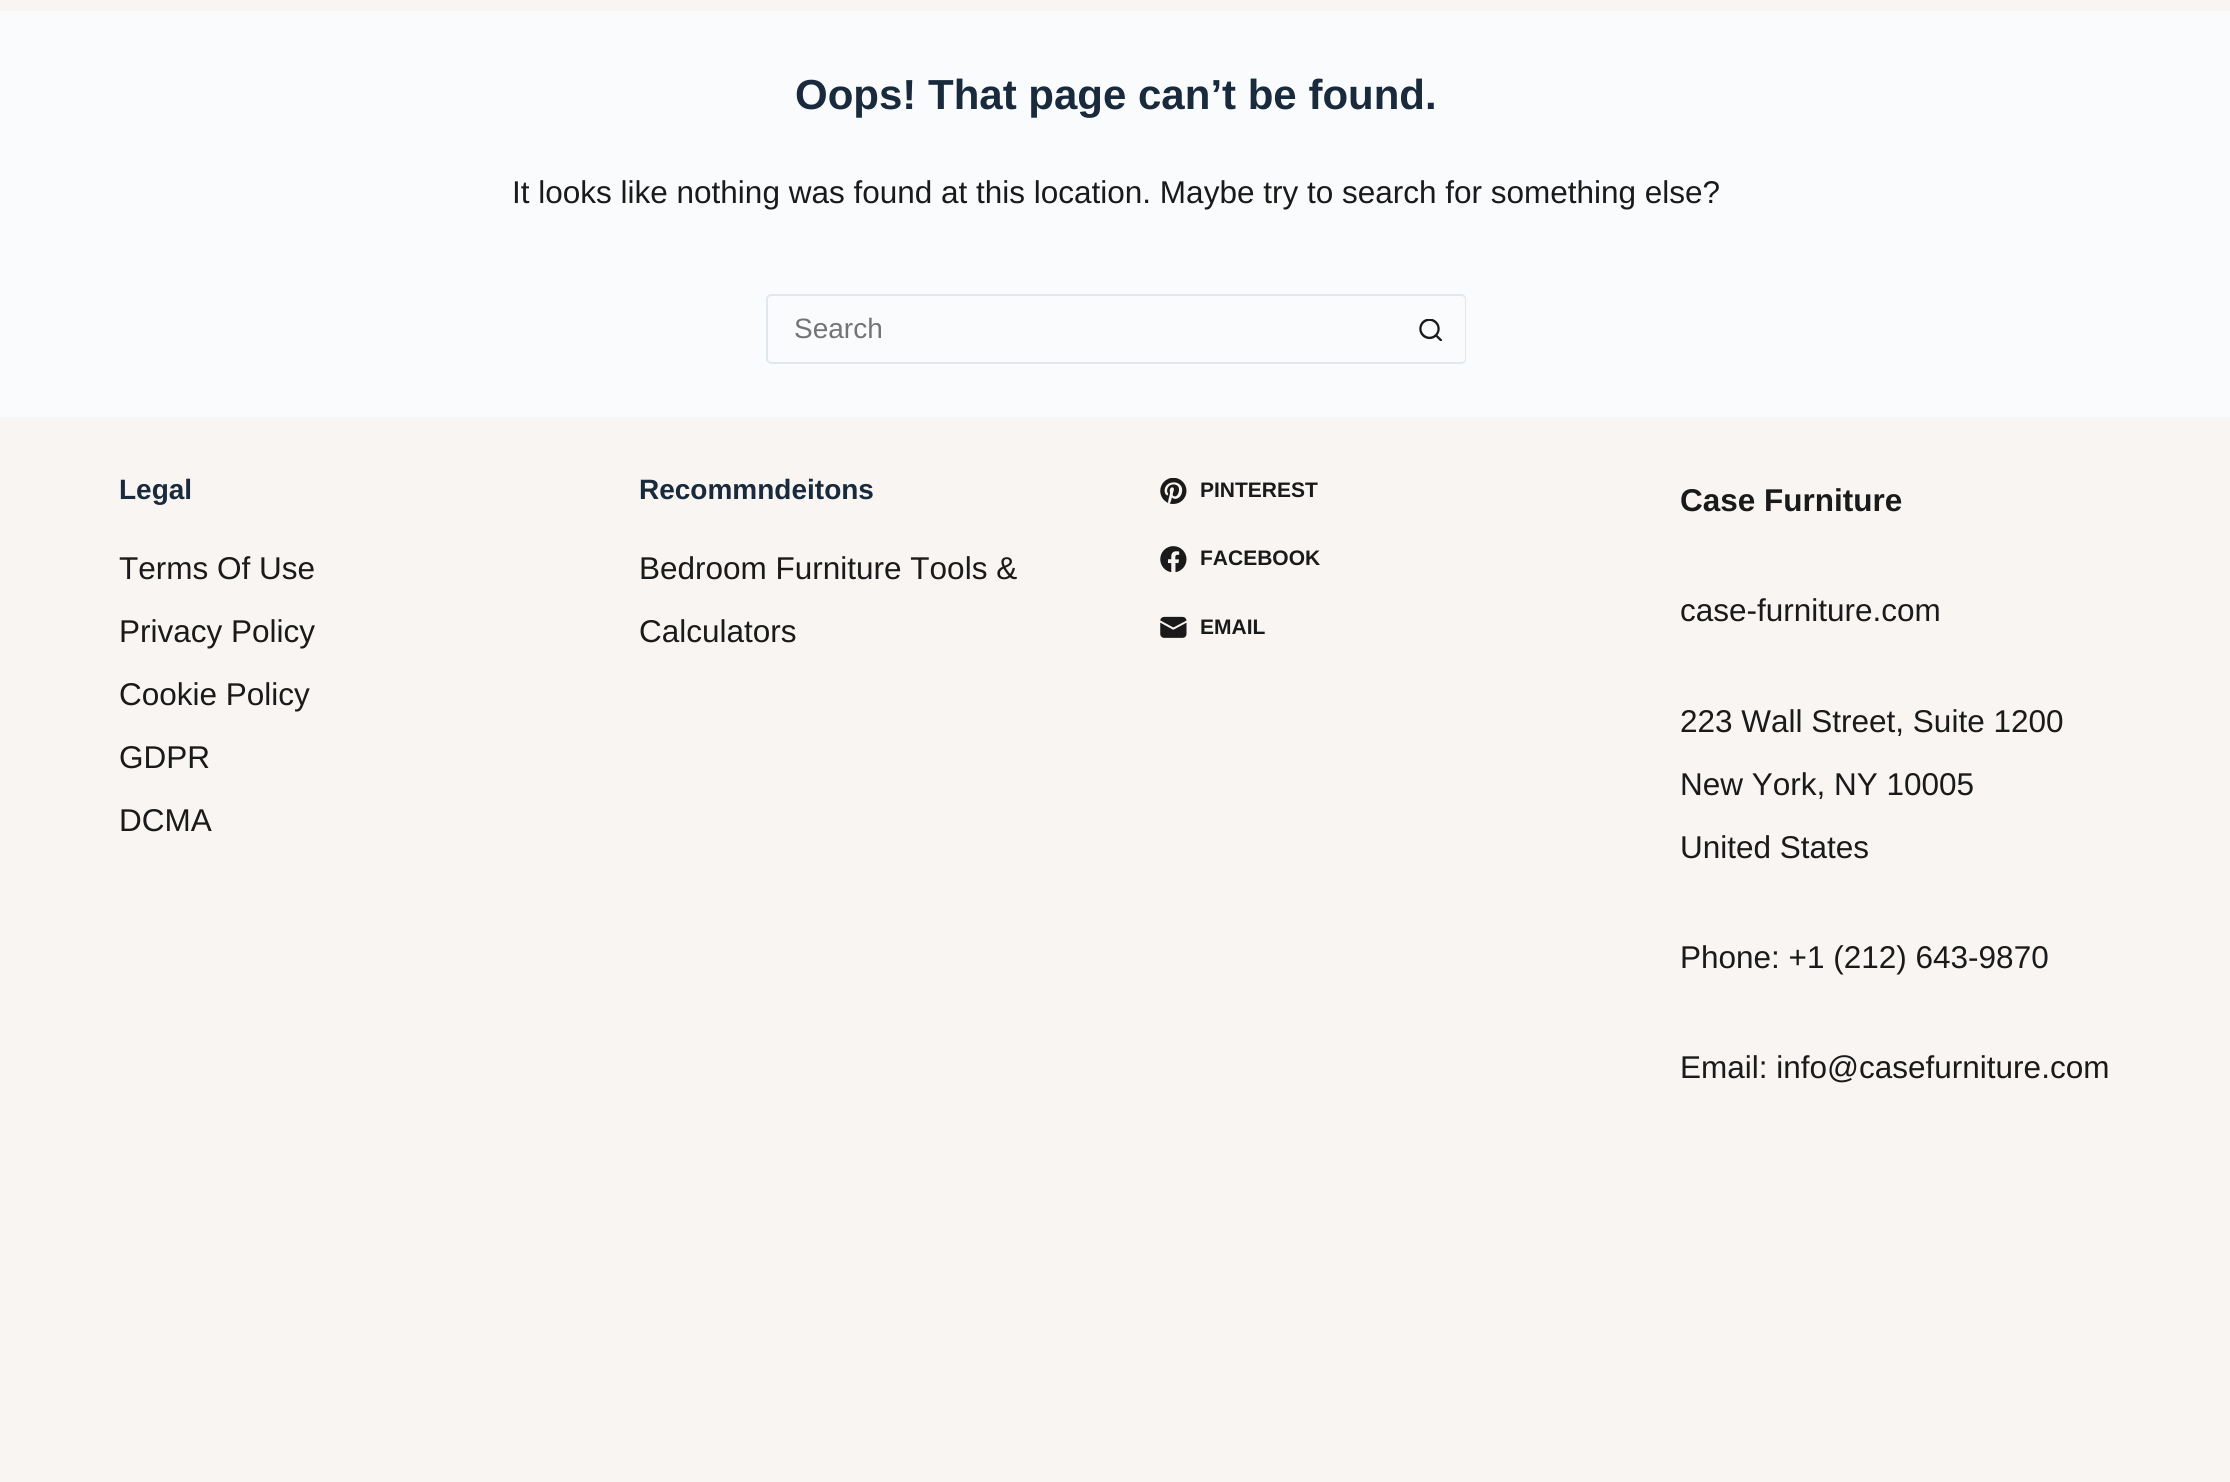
#include <cairo.h>
#include <math.h>
#include <stddef.h>


static void set_color(cairo_t *cr, unsigned color) {
    cairo_set_source_rgb(cr, (color >> 16) / 255.0, (color >> 8 & 255) / 255.0, (color & 255) / 255.0);
}

static void draw_text(cairo_t *cr, double x, double y, const char *s, const char *family, double size, int italic, int bold, unsigned color) {
    cairo_select_font_face(cr, family, italic ? CAIRO_FONT_SLANT_ITALIC : CAIRO_FONT_SLANT_NORMAL,
        bold ? CAIRO_FONT_WEIGHT_BOLD : CAIRO_FONT_WEIGHT_NORMAL);
    cairo_set_font_size(cr, size);
    set_color(cr, color);
    cairo_move_to(cr, x, y);
    cairo_show_text(cr, s);
}

static void fill_rect(cairo_t *cr, double x, double y, double w, double h, unsigned color) {
    set_color(cr, color);
    cairo_rectangle(cr, x, y, w, h);
    cairo_fill(cr);
}

static void draw_image(cairo_t *cr, const char *path, double x, double y, double w, double h) {
    cairo_surface_t *image = cairo_image_surface_create_from_png(path);
    cairo_save(cr);
    cairo_set_source_surface(cr, image, x, y);
    cairo_rectangle(cr, x, y, w, h);
    cairo_fill(cr);
    cairo_restore(cr);
    cairo_surface_destroy(image);
}

int main(void) {
    cairo_surface_t *surface = cairo_image_surface_create(CAIRO_FORMAT_RGB24, 2230, 1482);
    cairo_t *cr = cairo_create(surface);
    cairo_font_options_t *options = cairo_font_options_create();
    cairo_font_options_set_hint_metrics(options, CAIRO_HINT_METRICS_OFF);
    cairo_font_options_set_hint_style(options, CAIRO_HINT_STYLE_NONE);
    cairo_set_font_options(cr, options);
    cairo_set_miter_limit(cr, 4);
    set_color(cr, 0xFAFBFC);
    cairo_paint(cr);
    fill_rect(cr, 0, 0, 2230, 11, 0xF8F5F2);
    draw_text(cr, 795, 109, "Oops! That page can’t be found.", "Liberation Sans", 42, 0, 1, 0x192A3D);
    draw_text(cr, 512, 203, "It looks like nothing was found at this location. Maybe try to search for something else?", "Liberation Sans", 31.5, 0, 0, 0x1A1A1A);
    set_color(cr, 0xE1E8ED);
    cairo_set_fill_rule(cr, CAIRO_FILL_RULE_EVEN_ODD);
    cairo_new_path(cr);
    cairo_move_to(cr, 772, 294);
    cairo_line_to(cr, 1396, 294);
    cairo_line_to(cr, 1396, 364);
    cairo_line_to(cr, 772, 364);
    cairo_curve_to(cr, 769, 364, 766, 362, 766, 359);
    cairo_line_to(cr, 766, 299);
    cairo_curve_to(cr, 766, 296, 769, 294, 772, 294);
    cairo_close_path(cr);
    cairo_move_to(cr, 772, 296);
    cairo_line_to(cr, 1396, 296);
    cairo_line_to(cr, 1396, 362);
    cairo_line_to(cr, 772, 362);
    cairo_curve_to(cr, 770, 362, 768, 361, 768, 359);
    cairo_line_to(cr, 768, 299);
    cairo_curve_to(cr, 768, 297, 770, 296, 772, 296);
    cairo_close_path(cr);
    cairo_fill(cr);
    draw_text(cr, 794, 338, "Search", "Liberation Sans", 28, 0, 0, 0x747474);
    set_color(cr, 0xE1E8ED);
    cairo_new_path(cr);
    cairo_move_to(cr, 1396, 294);
    cairo_line_to(cr, 1461, 294);
    cairo_curve_to(cr, 1464, 294, 1466, 296, 1466, 299);
    cairo_line_to(cr, 1466, 359);
    cairo_curve_to(cr, 1466, 362, 1464, 364, 1461, 364);
    cairo_line_to(cr, 1396, 364);
    cairo_close_path(cr);
    cairo_move_to(cr, 1396, 296);
    cairo_line_to(cr, 1461, 296);
    cairo_curve_to(cr, 1463, 296, 1465, 297, 1465, 299);
    cairo_line_to(cr, 1465, 359);
    cairo_curve_to(cr, 1465, 361, 1463, 362, 1461, 362);
    cairo_line_to(cr, 1396, 362);
    cairo_close_path(cr);
    cairo_fill(cr);
    draw_image(cr, "assets/img1.png", 1419, 319, 23, 22);
    fill_rect(cr, 0, 417, 2230, 1065, 0xF8F5F2);
    draw_text(cr, 119, 499, "Legal", "Liberation Sans", 28, 0, 1, 0x192A3D);
    draw_text(cr, 119, 579, "Terms Of Use", "Liberation Sans", 31.5, 0, 0, 0x1A1A1A);
    draw_text(cr, 119, 642, "Privacy Policy", "Liberation Sans", 31.5, 0, 0, 0x1A1A1A);
    draw_text(cr, 119, 705, "Cookie Policy", "Liberation Sans", 31.5, 0, 0, 0x1A1A1A);
    draw_text(cr, 119, 768, "GDPR", "Liberation Sans", 31.5, 0, 0, 0x1A1A1A);
    draw_text(cr, 119, 831, "DCMA", "Liberation Sans", 31.5, 0, 0, 0x1A1A1A);
    draw_text(cr, 639, 499, "Recommndeitons", "Liberation Sans", 28, 0, 1, 0x192A3D);
    draw_text(cr, 639, 579, "Bedroom Furniture Tools &", "Liberation Sans", 31.5, 0, 0, 0x1A1A1A);
    draw_text(cr, 639, 642, "Calculators", "Liberation Sans", 31.5, 0, 0, 0x1A1A1A);
    draw_image(cr, "assets/img2.png", 1160, 478, 27, 26);
    draw_text(cr, 1200, 497, "PINTEREST", "Liberation Sans", 21, 0, 1, 0x1A1A1A);
    draw_image(cr, "assets/img3.png", 1160, 546, 27, 26);
    draw_text(cr, 1200, 565, "FACEBOOK", "Liberation Sans", 21, 0, 1, 0x1A1A1A);
    draw_image(cr, "assets/img4.png", 1160, 616, 27, 22);
    draw_text(cr, 1200, 634, "EMAIL", "Liberation Sans", 21, 0, 1, 0x1A1A1A);
    draw_text(cr, 1680, 511, "Case Furniture", "Liberation Sans", 31.5, 0, 1, 0x1A1A1A);
    draw_text(cr, 1680, 621, "case-furniture.com", "Liberation Sans", 31.5, 0, 0, 0x1A1A1A);
    draw_text(cr, 1680, 732, "223 Wall Street, Suite 1200", "Liberation Sans", 31.5, 0, 0, 0x1A1A1A);
    draw_text(cr, 1680, 795, "New York, NY 10005", "Liberation Sans", 31.5, 0, 0, 0x1A1A1A);
    draw_text(cr, 1680, 858, "United States", "Liberation Sans", 31.5, 0, 0, 0x1A1A1A);
    draw_text(cr, 1680, 968, "Phone: +1 (212) 643-9870", "Liberation Sans", 31.5, 0, 0, 0x1A1A1A);
    draw_text(cr, 1680, 1078, "Email: info@casefurniture.com", "Liberation Sans", 31.5, 0, 0, 0x1A1A1A);
    cairo_surface_write_to_png(surface, "output.png");
    cairo_font_options_destroy(options);
    cairo_destroy(cr);
    cairo_surface_destroy(surface);
    return 0;
}
